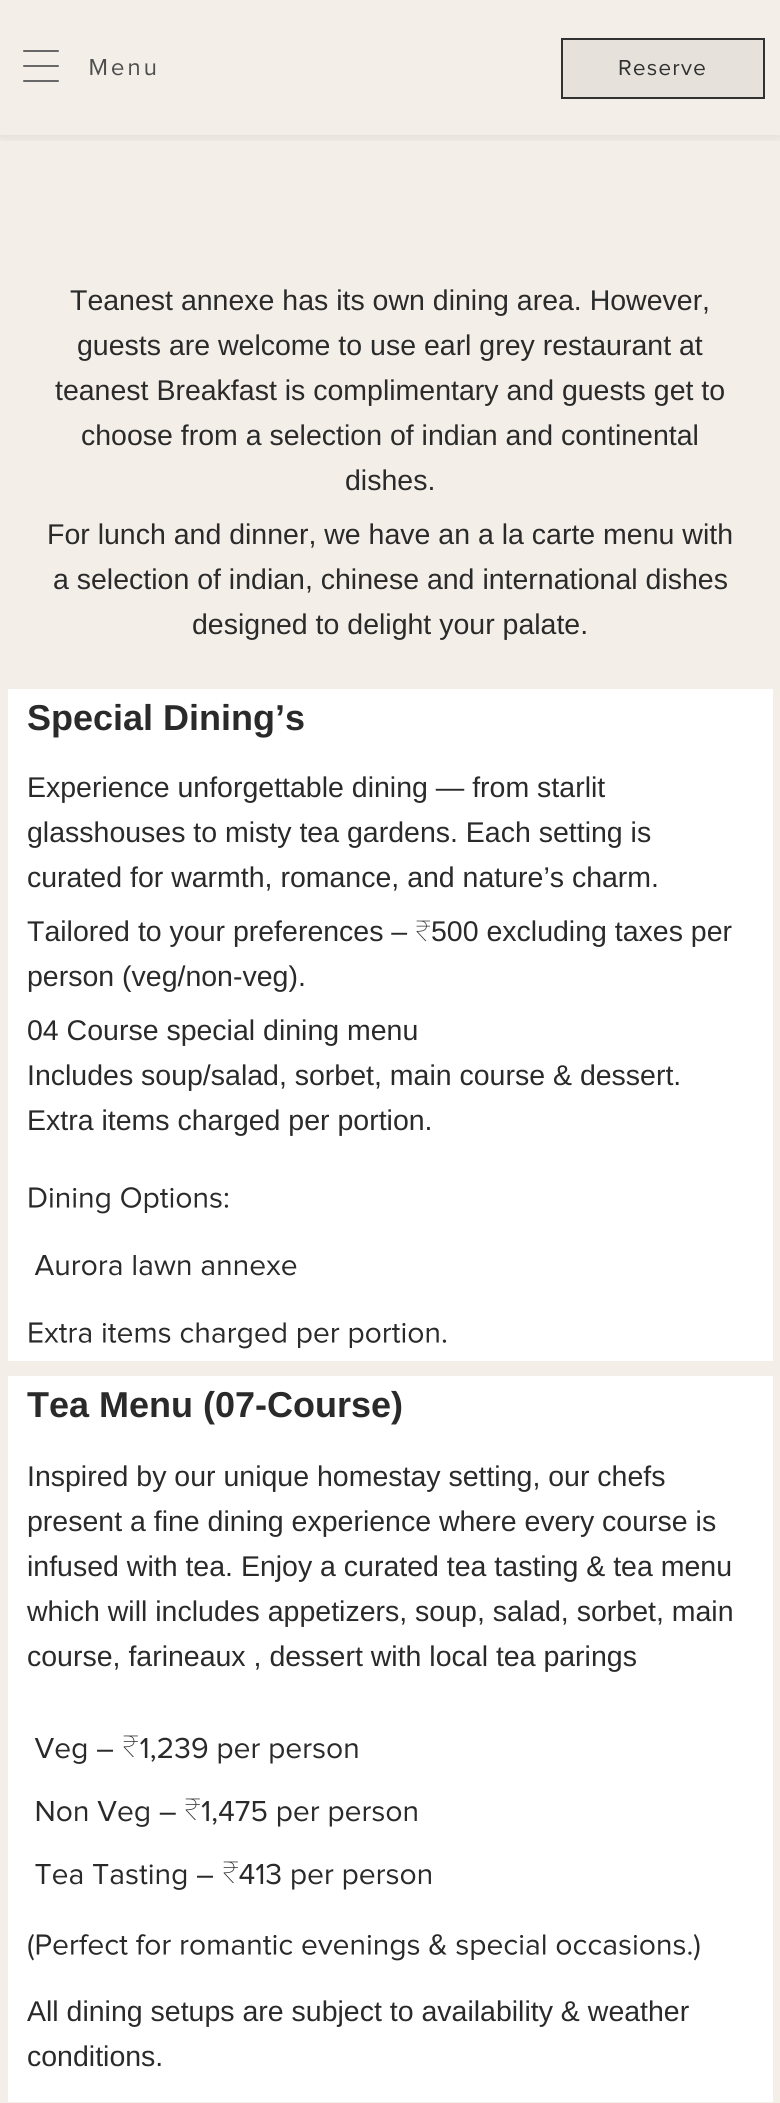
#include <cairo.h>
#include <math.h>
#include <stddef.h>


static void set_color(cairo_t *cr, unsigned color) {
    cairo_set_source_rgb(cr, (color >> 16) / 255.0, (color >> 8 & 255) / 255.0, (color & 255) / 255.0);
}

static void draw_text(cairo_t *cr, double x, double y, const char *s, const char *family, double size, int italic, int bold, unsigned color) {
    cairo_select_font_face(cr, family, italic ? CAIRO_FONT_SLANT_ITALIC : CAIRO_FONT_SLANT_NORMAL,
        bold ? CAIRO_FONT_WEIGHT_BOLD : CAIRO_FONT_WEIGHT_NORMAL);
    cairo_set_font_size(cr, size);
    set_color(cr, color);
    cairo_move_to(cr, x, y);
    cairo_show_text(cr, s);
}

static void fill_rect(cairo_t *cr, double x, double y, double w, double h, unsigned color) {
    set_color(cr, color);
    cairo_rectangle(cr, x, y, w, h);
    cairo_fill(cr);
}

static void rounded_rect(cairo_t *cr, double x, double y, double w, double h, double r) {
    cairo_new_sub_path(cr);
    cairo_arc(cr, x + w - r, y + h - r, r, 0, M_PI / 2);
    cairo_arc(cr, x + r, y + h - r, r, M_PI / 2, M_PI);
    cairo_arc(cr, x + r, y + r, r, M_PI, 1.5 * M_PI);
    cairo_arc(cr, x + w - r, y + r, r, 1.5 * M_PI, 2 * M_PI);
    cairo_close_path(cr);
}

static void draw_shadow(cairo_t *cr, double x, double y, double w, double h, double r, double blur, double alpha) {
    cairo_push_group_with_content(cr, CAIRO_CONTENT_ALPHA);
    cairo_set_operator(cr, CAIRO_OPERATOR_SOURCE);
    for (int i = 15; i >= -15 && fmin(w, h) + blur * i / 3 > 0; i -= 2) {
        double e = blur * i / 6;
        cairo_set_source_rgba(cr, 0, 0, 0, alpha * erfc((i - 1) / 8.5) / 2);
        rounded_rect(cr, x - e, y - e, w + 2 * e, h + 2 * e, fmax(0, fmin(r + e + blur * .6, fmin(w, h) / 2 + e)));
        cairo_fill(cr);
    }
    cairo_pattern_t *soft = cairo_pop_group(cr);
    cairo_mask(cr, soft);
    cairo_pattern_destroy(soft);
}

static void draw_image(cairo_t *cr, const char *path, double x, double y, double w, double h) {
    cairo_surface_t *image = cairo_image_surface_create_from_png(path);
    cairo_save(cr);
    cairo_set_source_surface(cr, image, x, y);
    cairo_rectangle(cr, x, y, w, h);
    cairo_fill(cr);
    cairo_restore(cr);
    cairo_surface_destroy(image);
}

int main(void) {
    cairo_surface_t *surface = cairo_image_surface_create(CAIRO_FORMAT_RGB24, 780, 2103);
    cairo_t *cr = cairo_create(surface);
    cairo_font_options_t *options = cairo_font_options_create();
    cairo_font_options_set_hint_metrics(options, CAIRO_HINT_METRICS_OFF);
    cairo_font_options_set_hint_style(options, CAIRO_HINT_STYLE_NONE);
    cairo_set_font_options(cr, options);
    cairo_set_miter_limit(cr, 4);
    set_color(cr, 0xF3EEE7);
    cairo_paint(cr);
    cairo_save(cr);
    cairo_rectangle(cr, 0, 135, 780, 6);
    cairo_clip(cr);
    set_color(cr, 0x000000);
    draw_shadow(cr, 0, 0, 780, 135, 0, 7.5, 0.1);
    cairo_restore(cr);
    set_color(cr, 0x686868);
    rounded_rect(cr, 23, 65, 36, 2, 1);
    cairo_fill(cr);
    rounded_rect(cr, 23, 50, 36, 2, 1);
    cairo_fill(cr);
    rounded_rect(cr, 23, 80, 36, 2, 1);
    cairo_fill(cr);
    draw_image(cr, "assets/img1.png", 90, 59, 66, 17);
    set_color(cr, 0xE6E2DB);
    cairo_rectangle(cr, 562, 39, 202, 59);
    cairo_fill_preserve(cr);
    set_color(cr, 0x313131);
    cairo_stroke(cr);
    draw_image(cr, "assets/img2.png", 619, 60, 86, 16);
    draw_text(cr, 70, 310, "Teanest annexe has its own dining area. However,", "Liberation Sans", 28.5, 0, 0, 0x2A2A2A);
    draw_text(cr, 77, 355, "guests are welcome to use earl grey restaurant at", "Liberation Sans", 28.5, 0, 0, 0x2A2A2A);
    draw_text(cr, 55, 400, "teanest Breakfast is complimentary and guests get to", "Liberation Sans", 28.5, 0, 0, 0x2A2A2A);
    draw_text(cr, 81, 445, "choose from a selection of indian and continental", "Liberation Sans", 28.5, 0, 0, 0x2A2A2A);
    draw_text(cr, 345, 490, "dishes.", "Liberation Sans", 28.5, 0, 0, 0x2A2A2A);
    draw_text(cr, 47, 544, "For lunch and dinner, we have an a la carte menu with", "Liberation Sans", 28.5, 0, 0, 0x2A2A2A);
    draw_text(cr, 53, 589, "a selection of indian, chinese and international dishes", "Liberation Sans", 28.5, 0, 0, 0x2A2A2A);
    draw_text(cr, 192, 634, "designed to delight your palate.", "Liberation Sans", 28.5, 0, 0, 0x2A2A2A);
    fill_rect(cr, 8, 689, 765, 672, 0xFFFFFF);
    draw_text(cr, 27, 730, "Special Dining’s", "Liberation Sans", 36, 0, 1, 0x2A2A2A);
    draw_text(cr, 27, 797, "Experience unforgettable dining — from starlit", "Liberation Sans", 28.5, 0, 0, 0x2A2A2A);
    draw_text(cr, 27, 842, "glasshouses to misty tea gardens. Each setting is", "Liberation Sans", 28.5, 0, 0, 0x2A2A2A);
    draw_text(cr, 27, 887, "curated for warmth, romance, and nature’s charm.", "Liberation Sans", 28.5, 0, 0, 0x2A2A2A);
    draw_text(cr, 27, 941, "Tailored to your preferences –", "Liberation Sans", 28.5, 0, 0, 0x2A2A2A);
    draw_text(cr, 415, 941, "₹", "Noto Sans Thin", 28.5, 0, 0, 0x2A2A2A);
    draw_text(cr, 431, 941, "500 excluding taxes per", "Liberation Sans", 28.5, 0, 0, 0x2A2A2A);
    draw_text(cr, 27, 986, "person (veg/non-veg).", "Liberation Sans", 28.5, 0, 0, 0x2A2A2A);
    draw_text(cr, 27, 1040, "04 Course special dining menu", "Liberation Sans", 28.5, 0, 0, 0x2A2A2A);
    draw_text(cr, 27, 1085, "Includes soup/salad, sorbet, main course & dessert.", "Liberation Sans", 28.5, 0, 0, 0x2A2A2A);
    draw_text(cr, 27, 1130, "Extra items charged per portion.", "Liberation Sans", 28.5, 0, 0, 0x2A2A2A);
    draw_image(cr, "assets/img3.png", 29, 1187, 200, 27);
    draw_image(cr, "assets/img4.png", 34, 1255, 263, 21);
    draw_image(cr, "assets/img5.png", 29, 1322, 418, 27);
    fill_rect(cr, 8, 1376, 765, 726, 0xFFFFFF);
    draw_text(cr, 27, 1417, "Tea Menu (07-Course)", "Liberation Sans", 36, 0, 1, 0x2A2A2A);
    draw_text(cr, 27, 1486, "Inspired by our unique homestay setting, our chefs", "Liberation Sans", 28.5, 0, 0, 0x2A2A2A);
    draw_text(cr, 27, 1531, "present a fine dining experience where every course is", "Liberation Sans", 28.5, 0, 0, 0x2A2A2A);
    draw_text(cr, 27, 1576, "infused with tea. Enjoy a curated tea tasting & tea menu", "Liberation Sans", 28.5, 0, 0, 0x2A2A2A);
    draw_text(cr, 27, 1621, "which will includes appetizers, soup, salad, sorbet, main", "Liberation Sans", 28.5, 0, 0, 0x2A2A2A);
    draw_text(cr, 27, 1666, "course, farineaux , dessert with local tea parings", "Liberation Sans", 28.5, 0, 0, 0x2A2A2A);
    draw_image(cr, "assets/img6.png", 34, 1738, 80, 26);
    draw_text(cr, 122, 1757, "₹", "Noto Sans Thin", 30, 0, 0, 0x2A2A2A);
    draw_image(cr, "assets/img7.png", 140, 1737, 218, 27);
    draw_image(cr, "assets/img8.png", 36, 1801, 140, 26);
    draw_text(cr, 184, 1820, "₹", "Noto Sans Thin", 30, 0, 0, 0x2A2A2A);
    draw_image(cr, "assets/img9.png", 201, 1801, 216, 26);
    draw_image(cr, "assets/img10.png", 35, 1864, 179, 26);
    draw_text(cr, 222, 1883, "₹", "Noto Sans Thin", 30, 0, 0, 0x2A2A2A);
    draw_image(cr, "assets/img11.png", 239, 1863, 192, 27);
    draw_image(cr, "assets/img12.png", 28, 1934, 672, 27);
    draw_text(cr, 27, 2021, "All dining setups are subject to availability & weather", "Liberation Sans", 28.5, 0, 0, 0x2A2A2A);
    draw_text(cr, 27, 2066, "conditions.", "Liberation Sans", 28.5, 0, 0, 0x2A2A2A);
    cairo_surface_write_to_png(surface, "output.png");
    cairo_font_options_destroy(options);
    cairo_destroy(cr);
    cairo_surface_destroy(surface);
    return 0;
}
